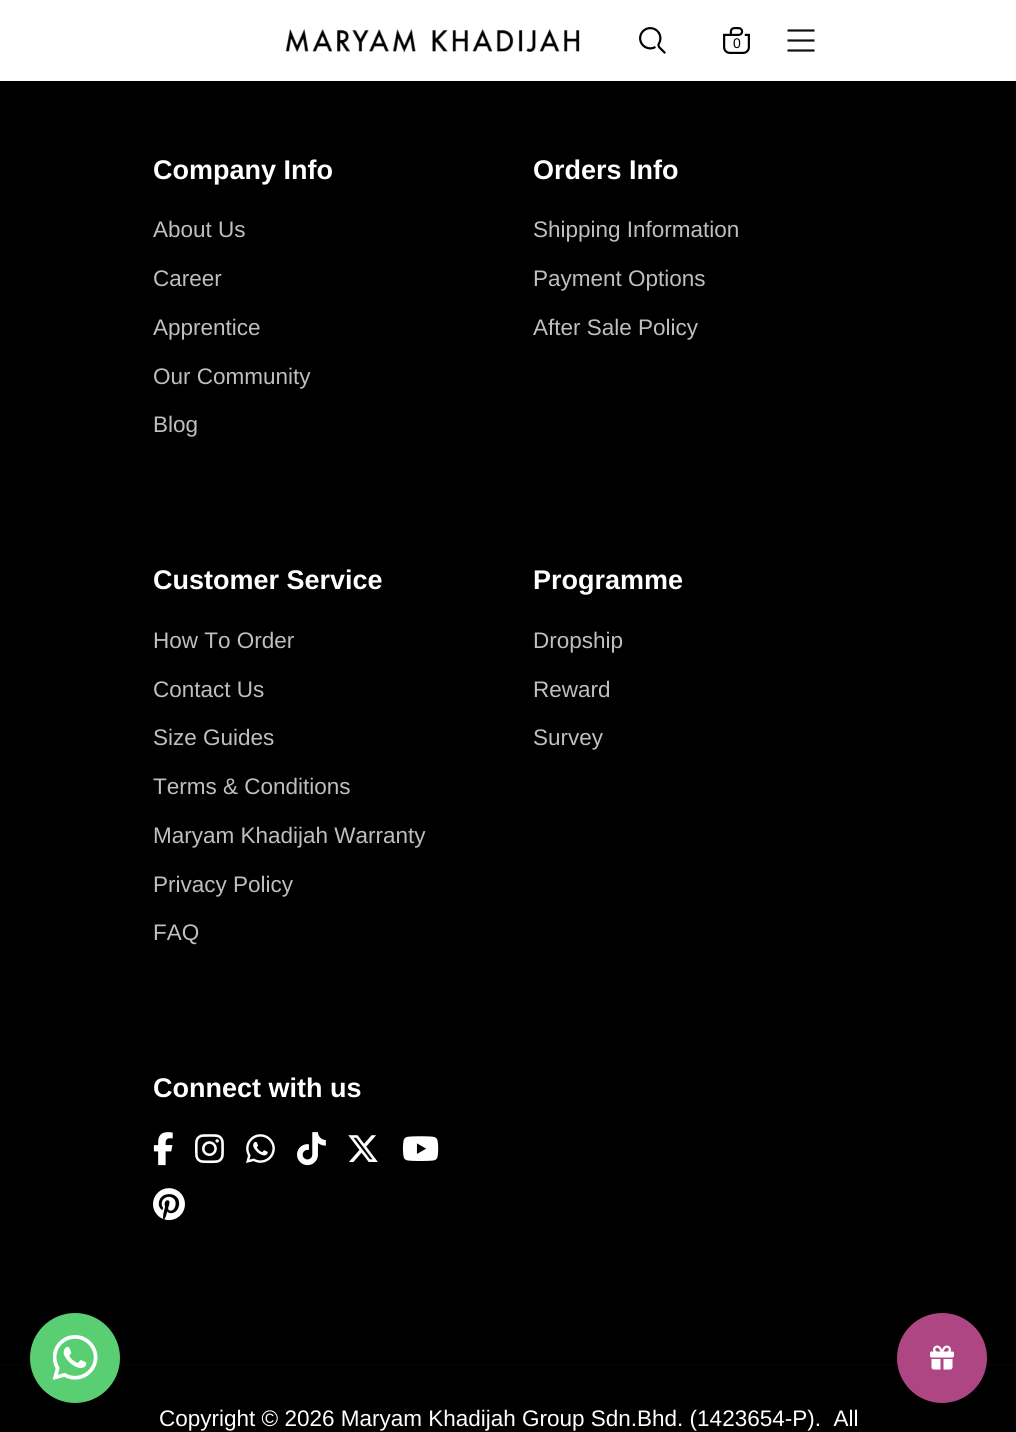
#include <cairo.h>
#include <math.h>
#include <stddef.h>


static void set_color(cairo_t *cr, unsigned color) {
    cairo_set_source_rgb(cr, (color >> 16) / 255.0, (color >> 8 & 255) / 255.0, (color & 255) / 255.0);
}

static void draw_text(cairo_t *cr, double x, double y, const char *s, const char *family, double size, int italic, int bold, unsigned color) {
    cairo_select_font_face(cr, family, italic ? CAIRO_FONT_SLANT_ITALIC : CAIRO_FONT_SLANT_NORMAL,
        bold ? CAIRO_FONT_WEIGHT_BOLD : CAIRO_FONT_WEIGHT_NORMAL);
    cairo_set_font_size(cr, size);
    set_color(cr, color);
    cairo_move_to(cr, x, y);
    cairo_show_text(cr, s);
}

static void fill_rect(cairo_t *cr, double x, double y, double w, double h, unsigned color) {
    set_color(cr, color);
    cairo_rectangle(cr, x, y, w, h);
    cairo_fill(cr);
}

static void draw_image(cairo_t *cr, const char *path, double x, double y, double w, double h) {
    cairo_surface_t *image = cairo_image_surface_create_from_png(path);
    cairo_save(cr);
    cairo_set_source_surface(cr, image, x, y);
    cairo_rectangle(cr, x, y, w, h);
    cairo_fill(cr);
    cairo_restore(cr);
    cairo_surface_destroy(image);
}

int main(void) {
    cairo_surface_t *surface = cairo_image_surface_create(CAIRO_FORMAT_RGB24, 1016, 1432);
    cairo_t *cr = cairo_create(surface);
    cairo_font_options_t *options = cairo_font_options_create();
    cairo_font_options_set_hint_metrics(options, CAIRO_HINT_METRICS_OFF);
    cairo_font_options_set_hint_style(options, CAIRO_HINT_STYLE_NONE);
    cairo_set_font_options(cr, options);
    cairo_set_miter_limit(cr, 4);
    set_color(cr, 0x000000);
    cairo_paint(cr);
    fill_rect(cr, 0, 0, 1016, 81, 0xFFFFFF);
    draw_image(cr, "assets/img1.png", 285, 28, 295, 25);
    draw_image(cr, "assets/img2.png", 639, 27, 27, 27);
    draw_image(cr, "assets/img3.png", 723, 27, 27, 27);
    draw_text(cr, 733, 48, "0", "Liberation Sans", 14, 0, 0, 0x000000);
    cairo_new_path(cr);
    cairo_move_to(cr, 814.5, 30.5);
    cairo_line_to(cr, 787.5, 30.5);
    cairo_move_to(cr, 814.5, 40.5);
    cairo_line_to(cr, 787.5, 40.5);
    cairo_move_to(cr, 814.5, 50.5);
    cairo_line_to(cr, 787.5, 50.5);
    set_color(cr, 0x111111);
    cairo_set_line_width(cr, 2.2);
    cairo_stroke(cr);
    draw_text(cr, 153, 179, "Company Info", "Liberation Sans", 27, 0, 1, 0xFFFFFF);
    draw_text(cr, 153, 237, "About Us", "Liberation Sans", 22.5, 0, 0, 0xBFBFBF);
    draw_text(cr, 153, 286, "Career", "Liberation Sans", 22.5, 0, 0, 0xBFBFBF);
    draw_text(cr, 153, 335, "Apprentice", "Liberation Sans", 22.5, 0, 0, 0xBFBFBF);
    draw_text(cr, 153, 384, "Our Community", "Liberation Sans", 22.5, 0, 0, 0xBFBFBF);
    draw_text(cr, 153, 432, "Blog", "Liberation Sans", 22.5, 0, 0, 0xBFBFBF);
    draw_text(cr, 533, 179, "Orders Info", "Liberation Sans", 27, 0, 1, 0xFFFFFF);
    draw_text(cr, 533, 237, "Shipping Information", "Liberation Sans", 22.5, 0, 0, 0xBFBFBF);
    draw_text(cr, 533, 286, "Payment Options", "Liberation Sans", 22.5, 0, 0, 0xBFBFBF);
    draw_text(cr, 533, 335, "After Sale Policy", "Liberation Sans", 22.5, 0, 0, 0xBFBFBF);
    draw_text(cr, 153, 589, "Customer Service", "Liberation Sans", 27, 0, 1, 0xFFFFFF);
    draw_text(cr, 153, 648, "How To Order", "Liberation Sans", 22.5, 0, 0, 0xBFBFBF);
    draw_text(cr, 153, 697, "Contact Us", "Liberation Sans", 22.5, 0, 0, 0xBFBFBF);
    draw_text(cr, 153, 745, "Size Guides", "Liberation Sans", 22.5, 0, 0, 0xBFBFBF);
    draw_text(cr, 153, 794, "Terms & Conditions", "Liberation Sans", 22.5, 0, 0, 0xBFBFBF);
    draw_text(cr, 153, 843, "Maryam Khadijah Warranty", "Liberation Sans", 22.5, 0, 0, 0xBFBFBF);
    draw_text(cr, 153, 892, "Privacy Policy", "Liberation Sans", 22.5, 0, 0, 0xBFBFBF);
    draw_text(cr, 153, 940, "FAQ", "Liberation Sans", 22.5, 0, 0, 0xBFBFBF);
    draw_text(cr, 533, 589, "Programme", "Liberation Sans", 27, 0, 1, 0xFFFFFF);
    draw_text(cr, 533, 648, "Dropship", "Liberation Sans", 22.5, 0, 0, 0xBFBFBF);
    draw_text(cr, 533, 697, "Reward", "Liberation Sans", 22.5, 0, 0, 0xBFBFBF);
    draw_text(cr, 533, 745, "Survey", "Liberation Sans", 22.5, 0, 0, 0xBFBFBF);
    draw_text(cr, 153, 1097, "Connect with us", "Liberation Sans", 27, 0, 1, 0xFFFFFF);
    draw_image(cr, "assets/img4.png", 153, 1132, 20, 34);
    draw_image(cr, "assets/img5.png", 195, 1134, 29, 30);
    draw_image(cr, "assets/img6.png", 246, 1134, 29, 29);
    draw_image(cr, "assets/img7.png", 297, 1132, 29, 34);
    draw_image(cr, "assets/img8.png", 348, 1135, 30, 27);
    draw_image(cr, "assets/img9.png", 402, 1136, 37, 25);
    draw_image(cr, "assets/img10.png", 153, 1188, 32, 33);
    fill_rect(cr, 0, 1364, 1016, 2, 0x030303);
    set_color(cr, 0x59CE72);
    cairo_arc(cr, 75, 1358, 45, 0, 2 * M_PI);
    cairo_fill(cr);
    draw_image(cr, "assets/img11.png", 53, 1335, 45, 45);
    set_color(cr, 0xAE4684);
    cairo_arc(cr, 942, 1358, 45, 0, 2 * M_PI);
    cairo_fill(cr);
    draw_image(cr, "assets/img12.png", 930, 1345, 24, 25);
    draw_text(cr, 159, 1426, "Copyright © 2026 Maryam Khadijah Group Sdn.Bhd. (1423654-P).  All", "Liberation Sans", 22.5, 0, 0, 0xFFFFFF);
    cairo_surface_write_to_png(surface, "output.png");
    cairo_font_options_destroy(options);
    cairo_destroy(cr);
    cairo_surface_destroy(surface);
    return 0;
}
